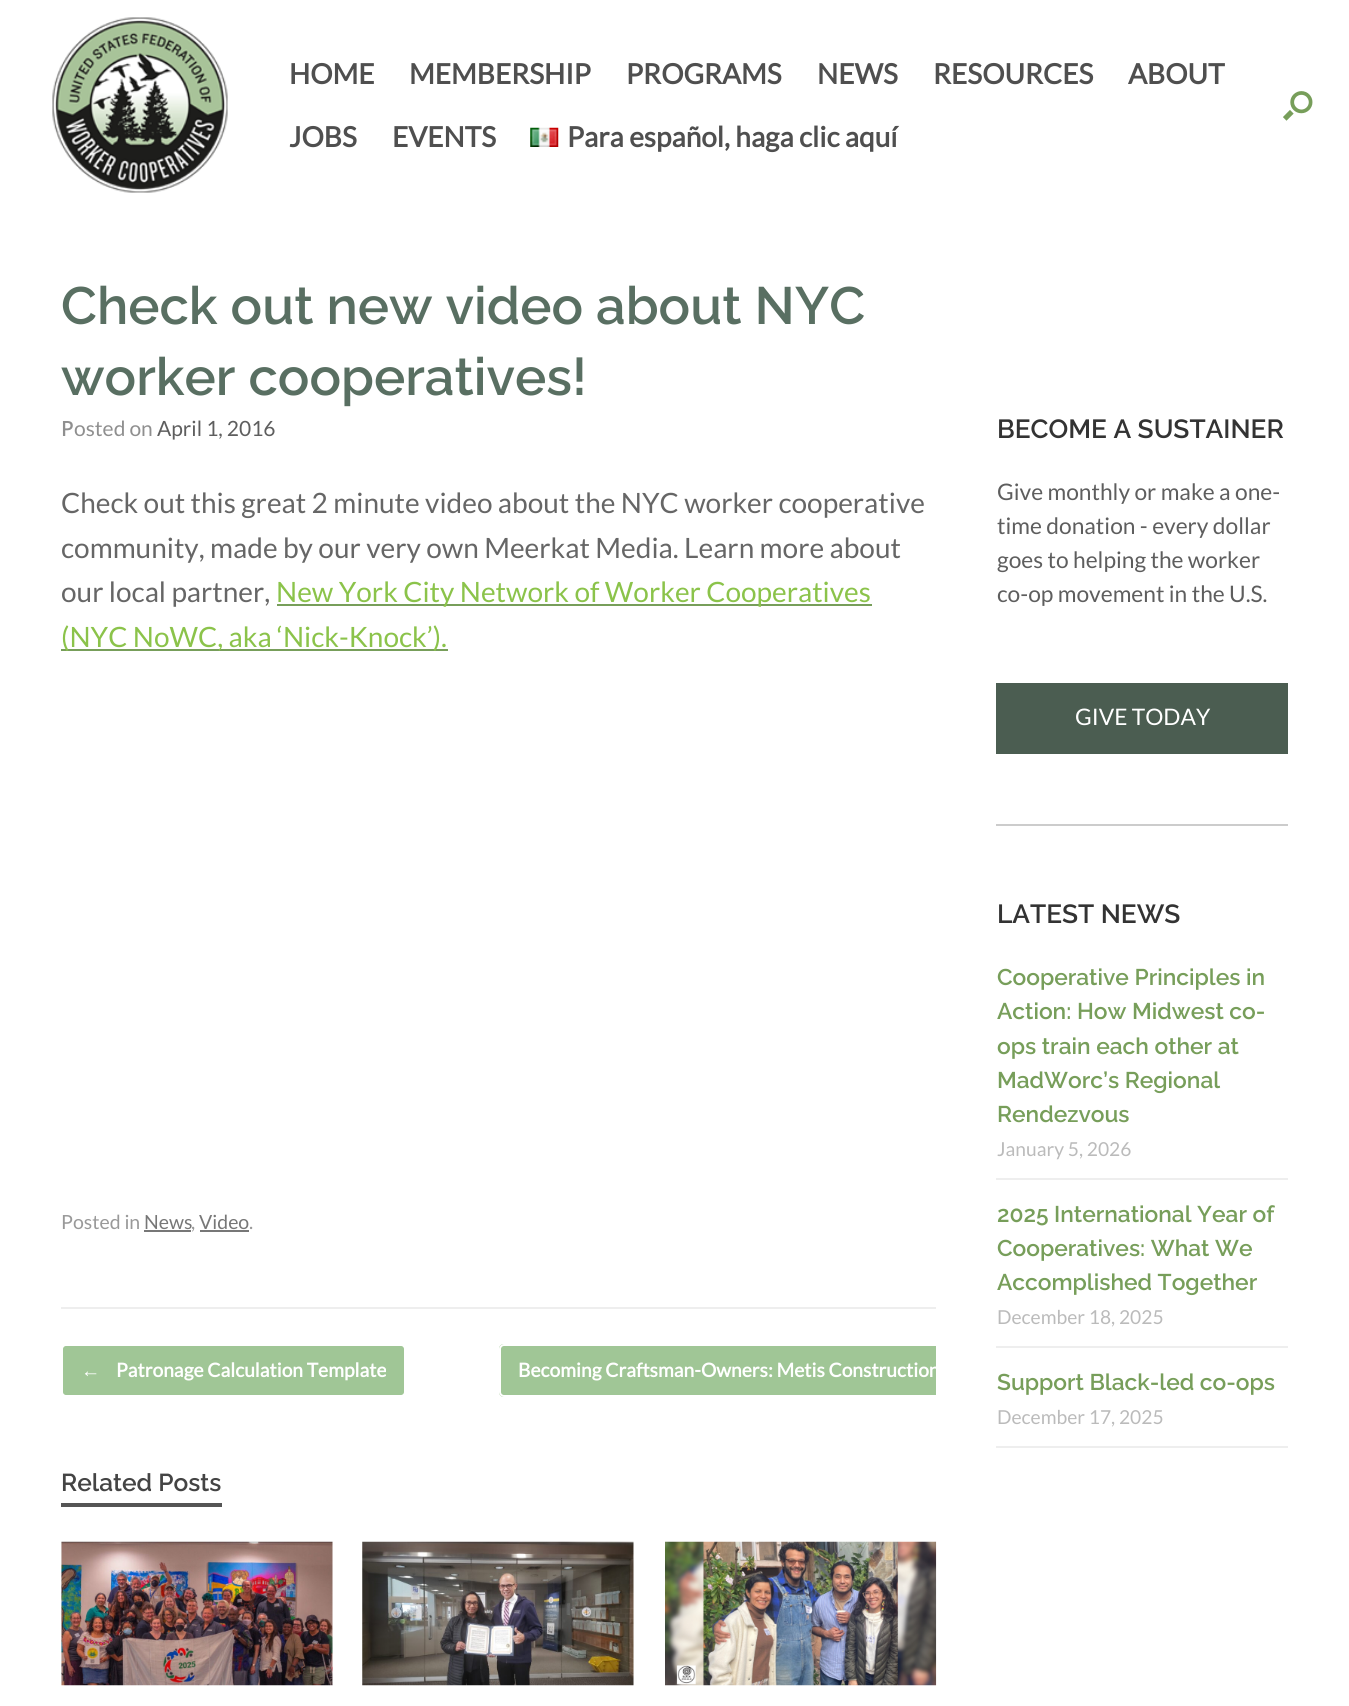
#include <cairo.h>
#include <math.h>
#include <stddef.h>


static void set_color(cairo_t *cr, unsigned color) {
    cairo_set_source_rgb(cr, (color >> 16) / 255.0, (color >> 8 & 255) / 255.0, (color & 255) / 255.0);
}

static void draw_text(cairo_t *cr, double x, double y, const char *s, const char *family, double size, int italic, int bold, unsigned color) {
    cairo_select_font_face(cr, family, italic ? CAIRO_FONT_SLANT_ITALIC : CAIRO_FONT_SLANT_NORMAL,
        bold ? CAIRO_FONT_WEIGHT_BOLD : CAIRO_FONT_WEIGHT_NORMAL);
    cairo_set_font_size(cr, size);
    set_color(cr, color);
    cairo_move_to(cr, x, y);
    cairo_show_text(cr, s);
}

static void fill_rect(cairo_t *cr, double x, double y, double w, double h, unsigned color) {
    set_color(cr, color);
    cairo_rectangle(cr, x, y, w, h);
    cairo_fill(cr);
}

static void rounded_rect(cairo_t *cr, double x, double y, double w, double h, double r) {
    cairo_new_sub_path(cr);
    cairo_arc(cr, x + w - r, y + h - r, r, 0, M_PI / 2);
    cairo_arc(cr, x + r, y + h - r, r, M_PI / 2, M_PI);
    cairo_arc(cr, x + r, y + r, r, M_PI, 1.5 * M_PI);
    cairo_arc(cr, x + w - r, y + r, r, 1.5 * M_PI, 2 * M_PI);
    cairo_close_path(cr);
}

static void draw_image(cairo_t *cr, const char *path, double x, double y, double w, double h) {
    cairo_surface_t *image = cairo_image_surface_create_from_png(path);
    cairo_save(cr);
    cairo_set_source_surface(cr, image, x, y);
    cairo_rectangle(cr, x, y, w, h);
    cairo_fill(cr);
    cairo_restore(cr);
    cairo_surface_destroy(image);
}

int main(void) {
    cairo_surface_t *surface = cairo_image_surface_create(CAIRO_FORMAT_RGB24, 1349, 1706);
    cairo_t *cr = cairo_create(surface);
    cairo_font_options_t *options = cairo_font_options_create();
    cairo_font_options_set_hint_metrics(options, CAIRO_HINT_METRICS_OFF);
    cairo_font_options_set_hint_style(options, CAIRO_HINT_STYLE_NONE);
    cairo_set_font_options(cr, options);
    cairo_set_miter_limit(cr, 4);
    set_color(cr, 0xFFFFFF);
    cairo_paint(cr);
    draw_image(cr, "assets/img1.png", 52, 17, 176, 176);
    draw_text(cr, 289, 84, "HOME", "Lato", 28, 0, 1, 0x4F4F4F);
    draw_text(cr, 409, 84, "MEMBERSHIP", "Lato", 28, 0, 1, 0x4F4F4F);
    draw_text(cr, 626, 84, "PROGRAMS", "Lato", 28, 0, 1, 0x4F4F4F);
    draw_text(cr, 817, 84, "NEWS", "Lato", 28, 0, 1, 0x4F4F4F);
    draw_text(cr, 933, 84, "RESOURCES", "Lato", 28, 0, 1, 0x4F4F4F);
    draw_text(cr, 1128, 84, "ABOUT", "Lato", 28, 0, 1, 0x4F4F4F);
    draw_text(cr, 289, 147, "JOBS", "Lato", 28, 0, 1, 0x4F4F4F);
    draw_text(cr, 392, 147, "EVENTS", "Lato", 28, 0, 1, 0x4F4F4F);
    draw_image(cr, "assets/img2.png", 530, 127, 29, 20);
    draw_text(cr, 567, 147, "Para español, haga clic aquí", "Lato", 28, 0, 1, 0x4F4F4F);
    draw_image(cr, "assets/img3.png", 1283, 91, 30, 30);
    fill_rect(cr, 61, 1307, 875, 2, 0xEEEEEE);
    draw_text(cr, 61, 324, "Check out new video about NYC", "Raleway SemiBold", 52.5, 0, 0, 0x596F62);
    draw_text(cr, 61, 395, "worker cooperatives!", "Raleway SemiBold", 52.5, 0, 0, 0x596F62);
    draw_text(cr, 61, 436, "P", "Noto Sans Medium", 21, 0, 0, 0x8F8F8F);
    draw_text(cr, 74, 436, "osted on", "Lato", 21, 0, 0, 0x8F8F8F);
    draw_text(cr, 157, 436, "April 1, 2016", "Lato", 21, 0, 0, 0x5E5E5E);
    draw_text(cr, 61, 513, "Check out this great 2 minute video about the NYC worker cooperative", "Lato", 28, 0, 0, 0x666666);
    draw_text(cr, 61, 558, "community, made by our very own Meerkat Media. Learn more about", "Lato", 28, 0, 0, 0x666666);
    draw_text(cr, 61, 602, "our local partner,", "Lato", 28, 0, 0, 0x666666);
    fill_rect(cr, 277, 604, 595, 2, 0x779E5A);
    draw_text(cr, 276, 602, "New York City Network of Worker Cooperatives", "Lato", 28, 0, 0, 0x8BC34A);
    fill_rect(cr, 61, 649, 387, 2, 0x779E5A);
    draw_text(cr, 61, 647, "(NYC NoWC, aka ‘Nick-Knock’).", "Lato", 28, 0, 0, 0x8BC34A);
    draw_text(cr, 61, 1229, "Posted in", "Lato", 19.5, 0, 0, 0x999999);
    draw_text(cr, 144, 1229, "News", "Lato", 19.5, 0, 0, 0x777777);
    fill_rect(cr, 144, 1230, 47, 2, 0x777777);
    draw_text(cr, 191, 1229, ",", "Lato", 19.5, 0, 0, 0x999999);
    draw_text(cr, 199, 1229, "Video", "Lato", 19.5, 0, 0, 0x777777);
    fill_rect(cr, 200, 1230, 49, 2, 0x777777);
    draw_text(cr, 249, 1229, ".", "Lato", 19.5, 0, 0, 0x999999);
    set_color(cr, 0xA0C696);
    rounded_rect(cr, 62, 1345, 343, 51, 4);
    cairo_fill_preserve(cr);
    set_color(cr, 0xFFFFFF);
    cairo_stroke(cr);
    draw_text(cr, 81, 1377, "←", "Liberation Serif", 19.25, 0, 1, 0xFFFFFF);
    draw_text(cr, 116, 1377, "Patronage Calculation Template", "Lato", 19.25, 0, 1, 0xFFFFFF);
    set_color(cr, 0xA0C696);
    cairo_new_path(cr);
    cairo_move_to(cr, 504, 1344);
    cairo_line_to(cr, 936, 1344);
    cairo_line_to(cr, 936, 1397);
    cairo_line_to(cr, 504, 1397);
    cairo_curve_to(cr, 501, 1397, 499, 1395, 499, 1392);
    cairo_line_to(cr, 499, 1349);
    cairo_curve_to(cr, 499, 1346, 501, 1344, 504, 1344);
    cairo_close_path(cr);
    cairo_fill(cr);
    fill_rect(cr, 996, 1346, 292, 2, 0xEEEEEE);
    draw_text(cr, 997, 1390, "Support Black-led co-ops", "Raleway SemiBold", 22.75, 0, 0, 0x779E5A);
    cairo_save(cr);
    cairo_rectangle(cr, 61, 1344, 875, 53);
    cairo_clip(cr);
    rounded_rect(cr, 500, 1345, 609, 51, 4);
    set_color(cr, 0xFFFFFF);
    cairo_stroke(cr);
    draw_text(cr, 518, 1377, "Becoming Craftsman-Owners: Metis Construction", "Lato", 19.25, 0, 1, 0xFFFFFF);
    cairo_restore(cr);
    fill_rect(cr, 61, 1503, 161, 4, 0x555555);
    draw_text(cr, 61, 1491, "Related Posts", "Raleway SemiBold", 24.5, 0, 0, 0x444444);
    draw_image(cr, "assets/img4.png", 61, 1541, 272, 145);
    draw_image(cr, "assets/img5.png", 362, 1541, 272, 145);
    draw_image(cr, "assets/img6.png", 665, 1541, 272, 145);
    draw_text(cr, 997, 438, "BECOME A SUSTAINER", "Raleway SemiBold", 26.25, 0, 0, 0x333333);
    draw_text(cr, 997, 500, "Give monthly or make a one-", "Lato", 22.75, 0, 0, 0x5E5E5E);
    draw_text(cr, 997, 534, "time donation - every dollar", "Lato", 22.75, 0, 0, 0x5E5E5E);
    draw_text(cr, 997, 568, "goes to helping the worker", "Lato", 22.75, 0, 0, 0x5E5E5E);
    draw_text(cr, 997, 602, "co-op movement in the U.S.", "Lato", 22.75, 0, 0, 0x5E5E5E);
    fill_rect(cr, 996, 683, 292, 71, 0x4B5D51);
    draw_text(cr, 1075, 725, "GIVE TODAY", "Lato", 22.75, 0, 0, 0xFFFFFF);
    fill_rect(cr, 996, 824, 292, 2, 0xCCCCCC);
    draw_text(cr, 997, 923, "LATEST NEWS", "Raleway SemiBold", 26.25, 0, 0, 0x333333);
    fill_rect(cr, 996, 1178, 292, 2, 0xEEEEEE);
    draw_text(cr, 997, 985, "Cooperative Principles in", "Raleway SemiBold", 22.75, 0, 0, 0x779E5A);
    draw_text(cr, 997, 1019, "Action: How Midwest co-", "Raleway SemiBold", 22.75, 0, 0, 0x779E5A);
    draw_text(cr, 997, 1054, "ops train each other at", "Raleway SemiBold", 22.75, 0, 0, 0x779E5A);
    draw_text(cr, 997, 1088, "MadWorc’s Regional", "Raleway SemiBold", 22.75, 0, 0, 0x779E5A);
    draw_text(cr, 997, 1122, "Rendezvous", "Raleway SemiBold", 22.75, 0, 0, 0x779E5A);
    draw_text(cr, 997, 1156, "January 5, 2026", "Lato", 19.25, 0, 0, 0xBBBBBB);
    draw_text(cr, 997, 1222, "2025 International Year of", "Raleway SemiBold", 22.75, 0, 0, 0x779E5A);
    draw_text(cr, 997, 1256, "Cooperatives: What We", "Raleway SemiBold", 22.75, 0, 0, 0x779E5A);
    draw_text(cr, 997, 1290, "Accomplished Together", "Raleway SemiBold", 22.75, 0, 0, 0x779E5A);
    draw_text(cr, 997, 1324, "December 18, 2025", "Lato", 19.25, 0, 0, 0xBBBBBB);
    fill_rect(cr, 996, 1446, 292, 2, 0xEEEEEE);
    draw_text(cr, 997, 1424, "December 17, 2025", "Lato", 19.25, 0, 0, 0xBBBBBB);
    cairo_surface_write_to_png(surface, "output.png");
    cairo_font_options_destroy(options);
    cairo_destroy(cr);
    cairo_surface_destroy(surface);
    return 0;
}
